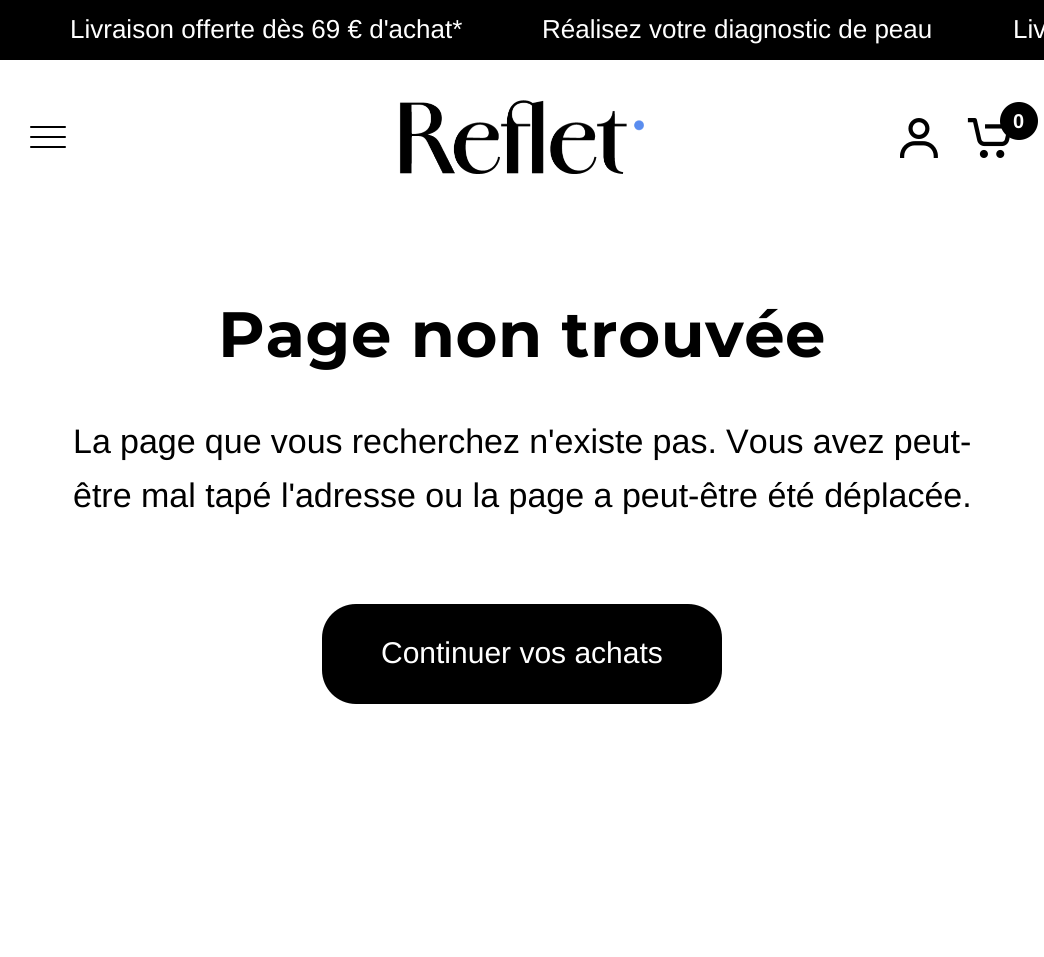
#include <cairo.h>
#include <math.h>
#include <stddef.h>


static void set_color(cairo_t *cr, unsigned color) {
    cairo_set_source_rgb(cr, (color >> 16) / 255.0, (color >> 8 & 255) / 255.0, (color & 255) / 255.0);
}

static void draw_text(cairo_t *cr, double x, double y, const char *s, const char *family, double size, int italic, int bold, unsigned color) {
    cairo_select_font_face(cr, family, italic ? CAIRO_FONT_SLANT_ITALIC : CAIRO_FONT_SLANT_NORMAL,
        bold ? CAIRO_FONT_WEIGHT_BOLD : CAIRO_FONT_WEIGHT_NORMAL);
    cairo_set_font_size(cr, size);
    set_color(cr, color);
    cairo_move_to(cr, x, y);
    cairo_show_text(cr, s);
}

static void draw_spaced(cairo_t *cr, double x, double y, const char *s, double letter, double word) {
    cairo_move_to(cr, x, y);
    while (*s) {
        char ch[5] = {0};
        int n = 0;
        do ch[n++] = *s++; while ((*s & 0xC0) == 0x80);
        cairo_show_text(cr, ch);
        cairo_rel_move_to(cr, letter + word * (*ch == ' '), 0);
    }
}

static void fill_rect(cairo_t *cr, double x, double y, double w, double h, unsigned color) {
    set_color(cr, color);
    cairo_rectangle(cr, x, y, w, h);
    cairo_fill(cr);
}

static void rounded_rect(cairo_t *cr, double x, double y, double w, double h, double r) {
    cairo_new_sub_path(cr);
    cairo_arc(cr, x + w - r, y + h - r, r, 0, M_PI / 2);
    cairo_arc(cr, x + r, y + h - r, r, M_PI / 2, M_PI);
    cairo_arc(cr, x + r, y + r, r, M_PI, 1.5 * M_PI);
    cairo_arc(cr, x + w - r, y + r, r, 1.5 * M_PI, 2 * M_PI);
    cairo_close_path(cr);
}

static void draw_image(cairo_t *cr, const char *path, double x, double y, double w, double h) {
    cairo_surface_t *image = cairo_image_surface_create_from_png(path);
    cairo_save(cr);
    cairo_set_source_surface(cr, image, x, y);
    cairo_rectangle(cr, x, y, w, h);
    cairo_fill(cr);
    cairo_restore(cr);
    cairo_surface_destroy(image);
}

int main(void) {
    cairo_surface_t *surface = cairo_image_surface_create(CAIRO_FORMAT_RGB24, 1044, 957);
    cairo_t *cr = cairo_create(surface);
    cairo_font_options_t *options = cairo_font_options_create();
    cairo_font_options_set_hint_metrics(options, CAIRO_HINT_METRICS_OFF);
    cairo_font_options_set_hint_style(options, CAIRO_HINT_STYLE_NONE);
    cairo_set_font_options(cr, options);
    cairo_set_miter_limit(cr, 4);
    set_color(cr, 0xFFFFFF);
    cairo_paint(cr);
    fill_rect(cr, 0, 0, 1044, 60, 0x000000);
    draw_text(cr, 70, 38, "Livraison offerte dès 69 € d'achat*", "Liberation Sans", 26, 0, 0, 0xFFFFFF);
    draw_text(cr, 542, 38, "Réalisez votre diagnostic de peau", "Liberation Sans", 26, 0, 0, 0xFFFFFF);
    draw_text(cr, 1013, 38, "Liv", "Liberation Sans", 26, 0, 0, 0xFFFFFF);
    draw_image(cr, "assets/img1.png", 399, 100, 245, 74);
    draw_image(cr, "assets/img2.png", 900, 118, 38, 40);
    draw_image(cr, "assets/img3.png", 967, 118, 43, 40);
    set_color(cr, 0x000000);
    cairo_arc(cr, 1019, 121, 19, 0, 2 * M_PI);
    cairo_fill(cr);
    draw_text(cr, 1013, 128, "0", "Liberation Sans", 20, 0, 1, 0xFFFFFF);
    set_color(cr, 0x000000);
    rounded_rect(cr, 30, 126, 36, 2, 1);
    cairo_fill(cr);
    rounded_rect(cr, 30, 136, 36, 2, 1);
    cairo_fill(cr);
    rounded_rect(cr, 30, 146, 36, 2, 1);
    cairo_fill(cr);
    cairo_select_font_face(cr, "Montserrat", CAIRO_FONT_SLANT_NORMAL, CAIRO_FONT_WEIGHT_BOLD);
    cairo_set_font_size(cr, 64);
    draw_spaced(cr, 218, 357, "Page non trouvée", 0.6, 0);
    cairo_select_font_face(cr, "Liberation Sans", CAIRO_FONT_SLANT_NORMAL, CAIRO_FONT_WEIGHT_NORMAL);
    cairo_set_font_size(cr, 34);
    draw_spaced(cr, 73, 453, "La page que vous recherchez n'existe pas. Vous avez peut-", 0, -0.25);
    draw_text(cr, 73, 507, "être mal tapé l'adresse ou la page a peut-être été déplacée.", "Liberation Sans", 34, 0, 0, 0x000000);
    rounded_rect(cr, 322, 604, 400, 100, 34);
    cairo_fill(cr);
    draw_text(cr, 381, 663, "Continuer vos achats", "Liberation Sans", 30, 0, 0, 0xFFFFFF);
    cairo_surface_write_to_png(surface, "output.png");
    cairo_font_options_destroy(options);
    cairo_destroy(cr);
    cairo_surface_destroy(surface);
    return 0;
}
